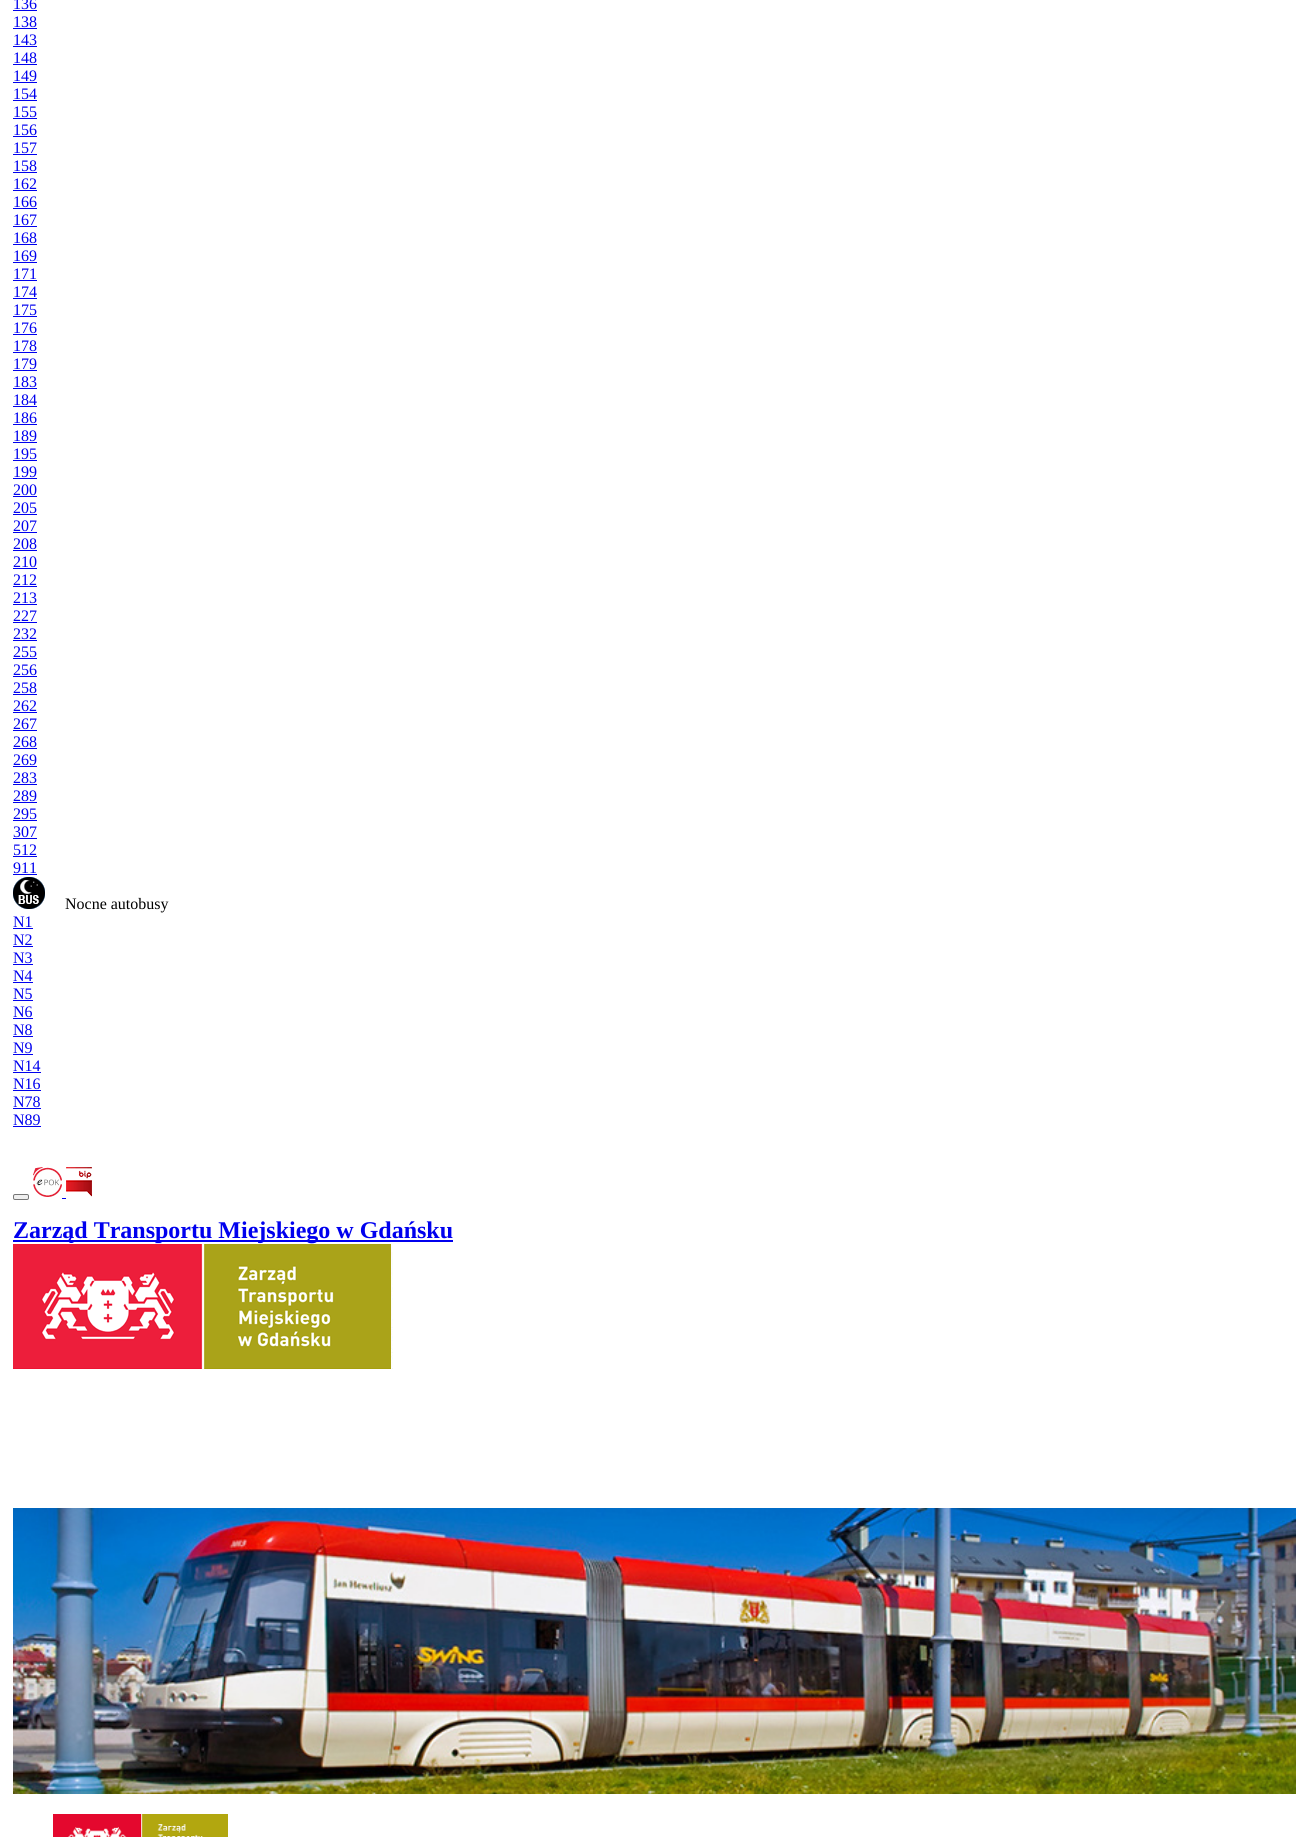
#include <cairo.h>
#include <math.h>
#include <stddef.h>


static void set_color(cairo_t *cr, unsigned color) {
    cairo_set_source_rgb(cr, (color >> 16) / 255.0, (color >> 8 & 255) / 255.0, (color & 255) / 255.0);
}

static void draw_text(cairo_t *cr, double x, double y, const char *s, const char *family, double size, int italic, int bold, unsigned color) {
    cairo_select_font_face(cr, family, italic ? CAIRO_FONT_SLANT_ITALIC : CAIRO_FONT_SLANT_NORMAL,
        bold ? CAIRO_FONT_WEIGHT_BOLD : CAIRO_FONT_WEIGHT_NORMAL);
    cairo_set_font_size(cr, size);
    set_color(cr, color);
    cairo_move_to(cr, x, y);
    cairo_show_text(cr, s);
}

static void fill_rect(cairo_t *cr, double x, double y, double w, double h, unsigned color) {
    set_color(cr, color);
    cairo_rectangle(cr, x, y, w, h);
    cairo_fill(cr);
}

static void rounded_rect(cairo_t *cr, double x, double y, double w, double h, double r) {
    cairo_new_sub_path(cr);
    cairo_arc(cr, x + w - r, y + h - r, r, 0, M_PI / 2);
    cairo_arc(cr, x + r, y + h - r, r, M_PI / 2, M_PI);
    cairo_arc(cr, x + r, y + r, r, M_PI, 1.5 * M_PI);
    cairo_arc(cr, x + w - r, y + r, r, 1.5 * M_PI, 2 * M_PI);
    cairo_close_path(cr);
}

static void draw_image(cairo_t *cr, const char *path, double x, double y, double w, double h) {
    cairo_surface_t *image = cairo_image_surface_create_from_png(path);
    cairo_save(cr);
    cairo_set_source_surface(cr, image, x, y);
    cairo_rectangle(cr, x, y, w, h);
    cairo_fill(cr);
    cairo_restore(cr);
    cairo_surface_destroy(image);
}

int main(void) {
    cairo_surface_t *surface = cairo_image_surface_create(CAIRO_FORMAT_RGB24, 1309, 1837);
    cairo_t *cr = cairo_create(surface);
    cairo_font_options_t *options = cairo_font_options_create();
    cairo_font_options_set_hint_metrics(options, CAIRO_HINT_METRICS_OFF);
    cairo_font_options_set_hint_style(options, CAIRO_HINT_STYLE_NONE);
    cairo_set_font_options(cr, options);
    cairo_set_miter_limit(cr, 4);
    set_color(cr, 0xFFFFFF);
    cairo_paint(cr);
    draw_text(cr, 13, 9, "136", "Liberation Serif", 16, 0, 0, 0x0000EE);
    fill_rect(cr, 13, 10, 24, 1, 0x0000EE);
    draw_text(cr, 13, 27, "138", "Liberation Serif", 16, 0, 0, 0x0000EE);
    fill_rect(cr, 13, 28, 24, 1, 0x0000EE);
    draw_text(cr, 13, 45, "143", "Liberation Serif", 16, 0, 0, 0x0000EE);
    fill_rect(cr, 13, 46, 24, 1, 0x0000EE);
    draw_text(cr, 13, 63, "148", "Liberation Serif", 16, 0, 0, 0x0000EE);
    fill_rect(cr, 13, 64, 24, 1, 0x0000EE);
    draw_text(cr, 13, 81, "149", "Liberation Serif", 16, 0, 0, 0x0000EE);
    fill_rect(cr, 13, 82, 24, 1, 0x0000EE);
    draw_text(cr, 13, 99, "154", "Liberation Serif", 16, 0, 0, 0x0000EE);
    fill_rect(cr, 13, 100, 24, 1, 0x0000EE);
    draw_text(cr, 13, 117, "155", "Liberation Serif", 16, 0, 0, 0x0000EE);
    fill_rect(cr, 13, 118, 24, 1, 0x0000EE);
    draw_text(cr, 13, 135, "156", "Liberation Serif", 16, 0, 0, 0x0000EE);
    fill_rect(cr, 13, 136, 24, 1, 0x0000EE);
    draw_text(cr, 13, 153, "157", "Liberation Serif", 16, 0, 0, 0x0000EE);
    fill_rect(cr, 13, 154, 24, 1, 0x0000EE);
    draw_text(cr, 13, 171, "158", "Liberation Serif", 16, 0, 0, 0x0000EE);
    fill_rect(cr, 13, 172, 24, 1, 0x0000EE);
    draw_text(cr, 13, 189, "162", "Liberation Serif", 16, 0, 0, 0x0000EE);
    fill_rect(cr, 13, 190, 24, 1, 0x0000EE);
    draw_text(cr, 13, 207, "166", "Liberation Serif", 16, 0, 0, 0x0000EE);
    fill_rect(cr, 13, 208, 24, 1, 0x0000EE);
    draw_text(cr, 13, 225, "167", "Liberation Serif", 16, 0, 0, 0x0000EE);
    fill_rect(cr, 13, 226, 24, 1, 0x0000EE);
    draw_text(cr, 13, 243, "168", "Liberation Serif", 16, 0, 0, 0x0000EE);
    fill_rect(cr, 13, 244, 24, 1, 0x0000EE);
    draw_text(cr, 13, 261, "169", "Liberation Serif", 16, 0, 0, 0x0000EE);
    fill_rect(cr, 13, 262, 24, 1, 0x0000EE);
    draw_text(cr, 13, 279, "171", "Liberation Serif", 16, 0, 0, 0x0000EE);
    fill_rect(cr, 13, 280, 24, 1, 0x0000EE);
    draw_text(cr, 13, 297, "174", "Liberation Serif", 16, 0, 0, 0x0000EE);
    fill_rect(cr, 13, 298, 24, 1, 0x0000EE);
    draw_text(cr, 13, 315, "175", "Liberation Serif", 16, 0, 0, 0x0000EE);
    fill_rect(cr, 13, 316, 24, 1, 0x0000EE);
    draw_text(cr, 13, 333, "176", "Liberation Serif", 16, 0, 0, 0x0000EE);
    fill_rect(cr, 13, 334, 24, 1, 0x0000EE);
    draw_text(cr, 13, 351, "178", "Liberation Serif", 16, 0, 0, 0x0000EE);
    fill_rect(cr, 13, 352, 24, 1, 0x0000EE);
    draw_text(cr, 13, 369, "179", "Liberation Serif", 16, 0, 0, 0x0000EE);
    fill_rect(cr, 13, 370, 24, 1, 0x0000EE);
    draw_text(cr, 13, 387, "183", "Liberation Serif", 16, 0, 0, 0x0000EE);
    fill_rect(cr, 13, 388, 24, 1, 0x0000EE);
    draw_text(cr, 13, 405, "184", "Liberation Serif", 16, 0, 0, 0x0000EE);
    fill_rect(cr, 13, 406, 24, 1, 0x0000EE);
    draw_text(cr, 13, 423, "186", "Liberation Serif", 16, 0, 0, 0x0000EE);
    fill_rect(cr, 13, 424, 24, 1, 0x0000EE);
    draw_text(cr, 13, 441, "189", "Liberation Serif", 16, 0, 0, 0x0000EE);
    fill_rect(cr, 13, 442, 24, 1, 0x0000EE);
    draw_text(cr, 13, 459, "195", "Liberation Serif", 16, 0, 0, 0x0000EE);
    fill_rect(cr, 13, 460, 24, 1, 0x0000EE);
    draw_text(cr, 13, 477, "199", "Liberation Serif", 16, 0, 0, 0x0000EE);
    fill_rect(cr, 13, 478, 24, 1, 0x0000EE);
    draw_text(cr, 13, 495, "200", "Liberation Serif", 16, 0, 0, 0x0000EE);
    fill_rect(cr, 13, 496, 24, 1, 0x0000EE);
    draw_text(cr, 13, 513, "205", "Liberation Serif", 16, 0, 0, 0x0000EE);
    fill_rect(cr, 13, 514, 24, 1, 0x0000EE);
    draw_text(cr, 13, 531, "207", "Liberation Serif", 16, 0, 0, 0x0000EE);
    fill_rect(cr, 13, 532, 24, 1, 0x0000EE);
    draw_text(cr, 13, 549, "208", "Liberation Serif", 16, 0, 0, 0x0000EE);
    fill_rect(cr, 13, 550, 24, 1, 0x0000EE);
    draw_text(cr, 13, 567, "210", "Liberation Serif", 16, 0, 0, 0x0000EE);
    fill_rect(cr, 13, 568, 24, 1, 0x0000EE);
    draw_text(cr, 13, 585, "212", "Liberation Serif", 16, 0, 0, 0x0000EE);
    fill_rect(cr, 13, 586, 24, 1, 0x0000EE);
    draw_text(cr, 13, 603, "213", "Liberation Serif", 16, 0, 0, 0x0000EE);
    fill_rect(cr, 13, 604, 24, 1, 0x0000EE);
    draw_text(cr, 13, 621, "227", "Liberation Serif", 16, 0, 0, 0x0000EE);
    fill_rect(cr, 13, 622, 24, 1, 0x0000EE);
    draw_text(cr, 13, 639, "232", "Liberation Serif", 16, 0, 0, 0x0000EE);
    fill_rect(cr, 13, 640, 24, 1, 0x0000EE);
    draw_text(cr, 13, 657, "255", "Liberation Serif", 16, 0, 0, 0x0000EE);
    fill_rect(cr, 13, 658, 24, 1, 0x0000EE);
    draw_text(cr, 13, 675, "256", "Liberation Serif", 16, 0, 0, 0x0000EE);
    fill_rect(cr, 13, 676, 24, 1, 0x0000EE);
    draw_text(cr, 13, 693, "258", "Liberation Serif", 16, 0, 0, 0x0000EE);
    fill_rect(cr, 13, 694, 24, 1, 0x0000EE);
    draw_text(cr, 13, 711, "262", "Liberation Serif", 16, 0, 0, 0x0000EE);
    fill_rect(cr, 13, 712, 24, 1, 0x0000EE);
    draw_text(cr, 13, 729, "267", "Liberation Serif", 16, 0, 0, 0x0000EE);
    fill_rect(cr, 13, 730, 24, 1, 0x0000EE);
    draw_text(cr, 13, 747, "268", "Liberation Serif", 16, 0, 0, 0x0000EE);
    fill_rect(cr, 13, 748, 24, 1, 0x0000EE);
    draw_text(cr, 13, 765, "269", "Liberation Serif", 16, 0, 0, 0x0000EE);
    fill_rect(cr, 13, 766, 24, 1, 0x0000EE);
    draw_text(cr, 13, 783, "283", "Liberation Serif", 16, 0, 0, 0x0000EE);
    fill_rect(cr, 13, 784, 24, 1, 0x0000EE);
    draw_text(cr, 13, 801, "289", "Liberation Serif", 16, 0, 0, 0x0000EE);
    fill_rect(cr, 13, 802, 24, 1, 0x0000EE);
    draw_text(cr, 13, 819, "295", "Liberation Serif", 16, 0, 0, 0x0000EE);
    fill_rect(cr, 13, 820, 24, 1, 0x0000EE);
    draw_text(cr, 13, 837, "307", "Liberation Serif", 16, 0, 0, 0x0000EE);
    fill_rect(cr, 13, 838, 24, 1, 0x0000EE);
    draw_text(cr, 13, 855, "512", "Liberation Serif", 16, 0, 0, 0x0000EE);
    fill_rect(cr, 13, 856, 24, 1, 0x0000EE);
    draw_text(cr, 13, 873, "911", "Liberation Serif", 16, 0, 0, 0x0000EE);
    fill_rect(cr, 13, 874, 24, 1, 0x0000EE);
    draw_image(cr, "assets/img1.png", 13, 877, 32, 32);
    draw_text(cr, 65, 909, "Nocne autobusy", "Liberation Serif", 16, 0, 0, 0x000000);
    draw_text(cr, 13, 927, "N1", "Liberation Serif", 16, 0, 0, 0x0000EE);
    fill_rect(cr, 13, 928, 20, 1, 0x0000EE);
    draw_text(cr, 13, 945, "N2", "Liberation Serif", 16, 0, 0, 0x0000EE);
    fill_rect(cr, 13, 946, 20, 1, 0x0000EE);
    draw_text(cr, 13, 963, "N3", "Liberation Serif", 16, 0, 0, 0x0000EE);
    fill_rect(cr, 13, 964, 20, 1, 0x0000EE);
    draw_text(cr, 13, 981, "N4", "Liberation Serif", 16, 0, 0, 0x0000EE);
    fill_rect(cr, 13, 982, 20, 1, 0x0000EE);
    draw_text(cr, 13, 999, "N5", "Liberation Serif", 16, 0, 0, 0x0000EE);
    fill_rect(cr, 13, 1000, 20, 1, 0x0000EE);
    draw_text(cr, 13, 1017, "N6", "Liberation Serif", 16, 0, 0, 0x0000EE);
    fill_rect(cr, 13, 1018, 20, 1, 0x0000EE);
    draw_text(cr, 13, 1035, "N8", "Liberation Serif", 16, 0, 0, 0x0000EE);
    fill_rect(cr, 13, 1036, 20, 1, 0x0000EE);
    draw_text(cr, 13, 1053, "N9", "Liberation Serif", 16, 0, 0, 0x0000EE);
    fill_rect(cr, 13, 1054, 20, 1, 0x0000EE);
    draw_text(cr, 13, 1071, "N14", "Liberation Serif", 16, 0, 0, 0x0000EE);
    fill_rect(cr, 13, 1072, 28, 1, 0x0000EE);
    draw_text(cr, 13, 1089, "N16", "Liberation Serif", 16, 0, 0, 0x0000EE);
    fill_rect(cr, 13, 1090, 28, 1, 0x0000EE);
    draw_text(cr, 13, 1107, "N78", "Liberation Serif", 16, 0, 0, 0x0000EE);
    fill_rect(cr, 13, 1108, 28, 1, 0x0000EE);
    draw_text(cr, 13, 1125, "N89", "Liberation Serif", 16, 0, 0, 0x0000EE);
    fill_rect(cr, 13, 1126, 28, 1, 0x0000EE);
    set_color(cr, 0xEFEFEF);
    rounded_rect(cr, 13.5, 1194.5, 15, 5, 1.5);
    cairo_fill_preserve(cr);
    set_color(cr, 0x767676);
    cairo_set_line_width(cr, 1);
    cairo_stroke(cr);
    draw_image(cr, "assets/img2.png", 33, 1167, 29, 30);
    fill_rect(cr, 62, 1198, 4, 1, 0x0000EE);
    draw_image(cr, "assets/img3.png", 66, 1167, 26, 30);
    fill_rect(cr, 13, 1240, 440, 2, 0x0000EE);
    draw_text(cr, 13, 1238, "Zarząd Transportu Miejskiego w Gdańsku", "Liberation Serif", 24, 0, 1, 0x0000EE);
    draw_image(cr, "assets/img4.png", 13, 1244, 380, 125);
    draw_image(cr, "assets/img5.png", 13, 1508, 1283, 286);
    draw_image(cr, "assets/img6.png", 53, 1814, 175, 23);
    cairo_surface_write_to_png(surface, "output.png");
    cairo_font_options_destroy(options);
    cairo_destroy(cr);
    cairo_surface_destroy(surface);
    return 0;
}
